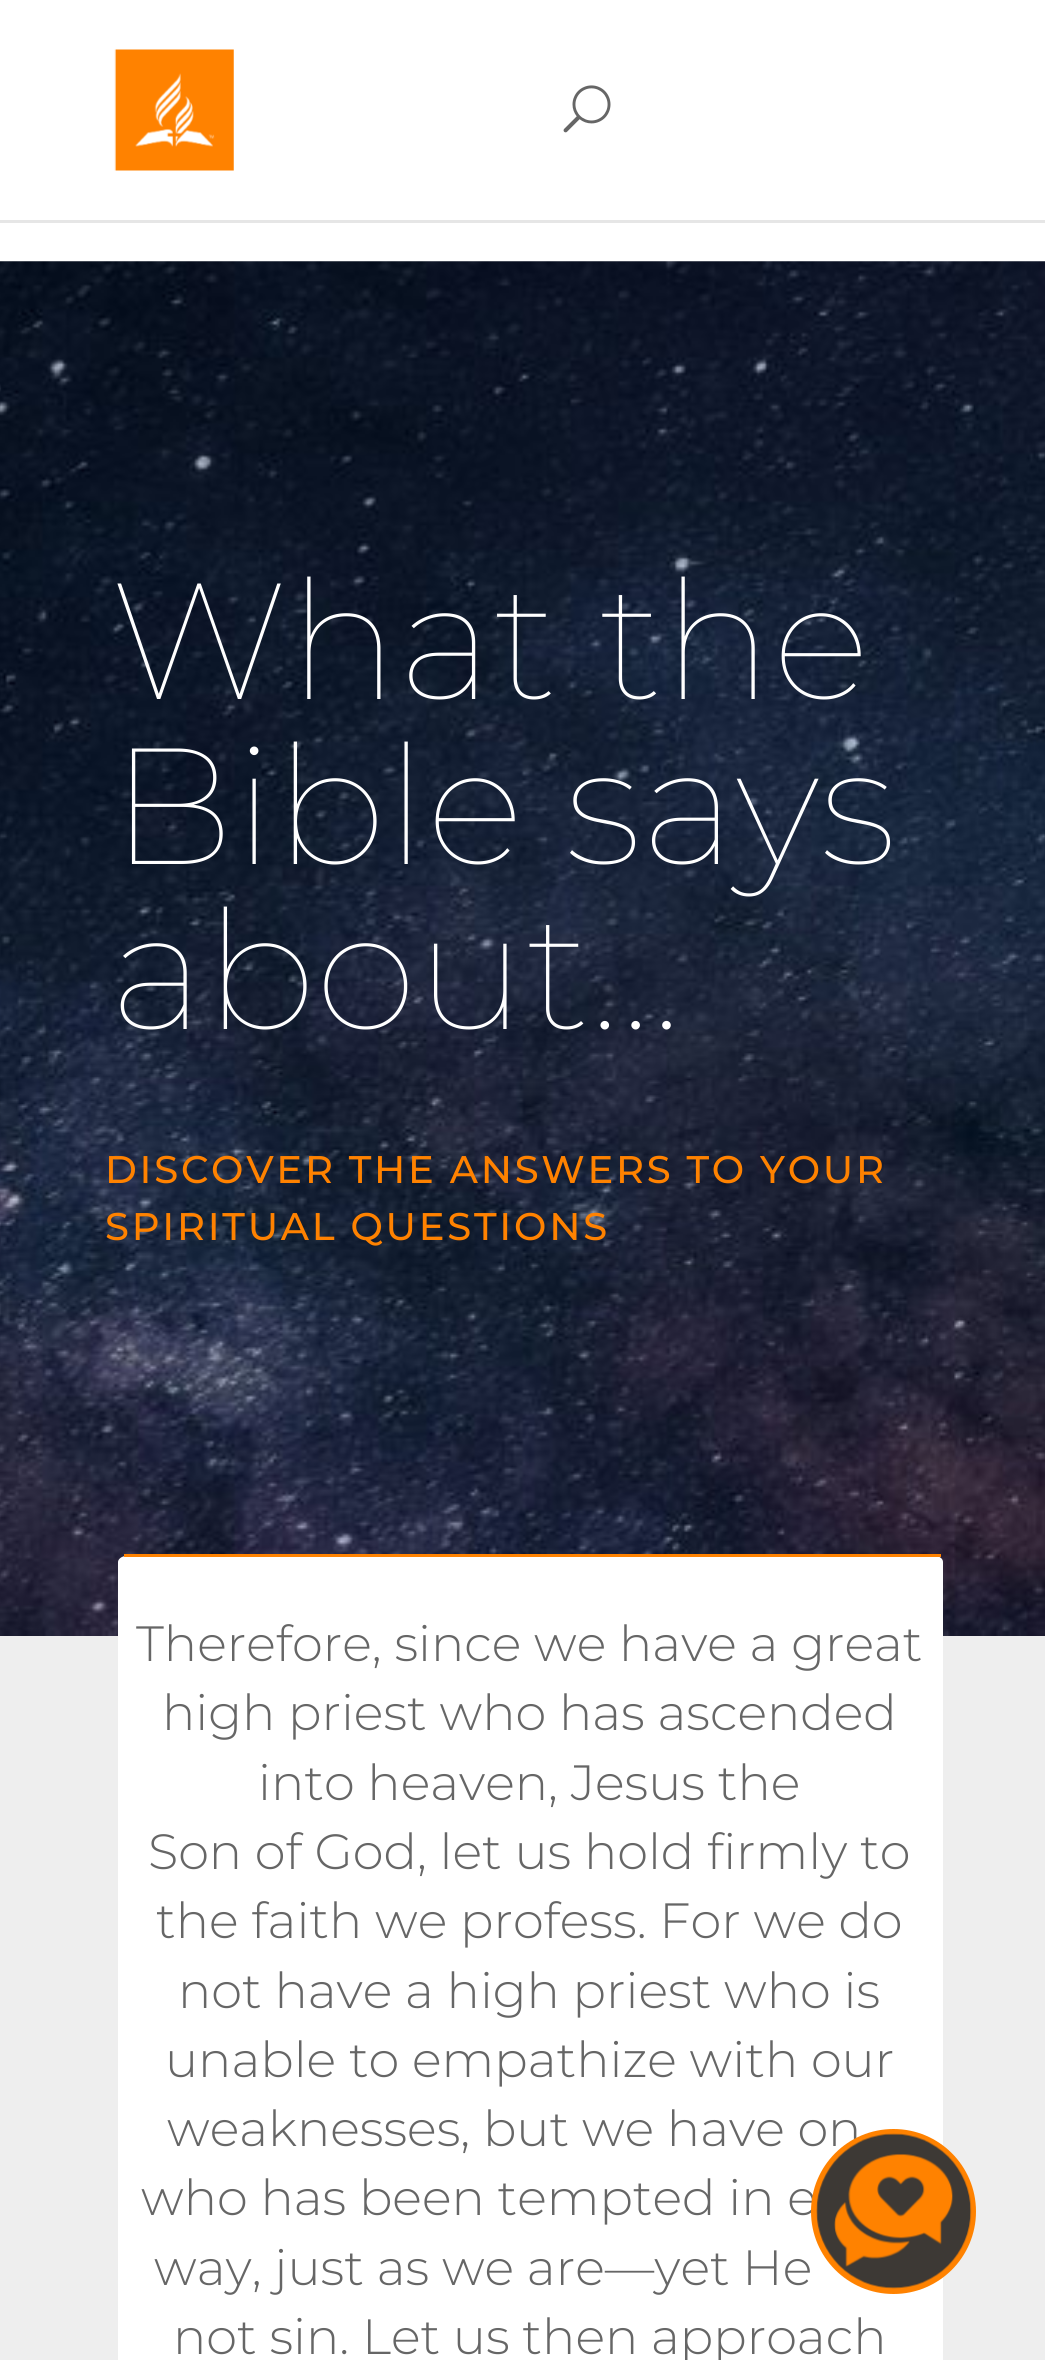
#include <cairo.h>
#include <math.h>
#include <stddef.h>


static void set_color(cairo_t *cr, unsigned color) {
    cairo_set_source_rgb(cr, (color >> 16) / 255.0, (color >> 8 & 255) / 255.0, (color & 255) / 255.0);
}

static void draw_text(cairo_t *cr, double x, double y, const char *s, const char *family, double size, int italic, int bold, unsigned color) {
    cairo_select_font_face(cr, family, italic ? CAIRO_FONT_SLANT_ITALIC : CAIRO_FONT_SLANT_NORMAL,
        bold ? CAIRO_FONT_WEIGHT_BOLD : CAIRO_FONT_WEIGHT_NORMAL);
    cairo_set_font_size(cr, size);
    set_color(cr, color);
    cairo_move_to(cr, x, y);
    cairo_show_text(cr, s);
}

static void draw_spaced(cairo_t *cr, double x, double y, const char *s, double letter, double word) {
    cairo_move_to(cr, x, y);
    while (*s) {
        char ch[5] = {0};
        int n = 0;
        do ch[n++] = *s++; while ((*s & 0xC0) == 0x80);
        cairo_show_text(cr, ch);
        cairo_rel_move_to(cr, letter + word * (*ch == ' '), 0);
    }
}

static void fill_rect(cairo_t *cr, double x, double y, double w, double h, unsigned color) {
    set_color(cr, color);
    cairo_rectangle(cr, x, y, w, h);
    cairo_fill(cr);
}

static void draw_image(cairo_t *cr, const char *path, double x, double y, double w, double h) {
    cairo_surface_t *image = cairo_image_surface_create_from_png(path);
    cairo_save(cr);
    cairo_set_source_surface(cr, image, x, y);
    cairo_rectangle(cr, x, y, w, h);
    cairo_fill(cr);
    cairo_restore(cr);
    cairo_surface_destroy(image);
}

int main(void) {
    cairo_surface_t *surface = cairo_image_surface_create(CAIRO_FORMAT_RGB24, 1045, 2360);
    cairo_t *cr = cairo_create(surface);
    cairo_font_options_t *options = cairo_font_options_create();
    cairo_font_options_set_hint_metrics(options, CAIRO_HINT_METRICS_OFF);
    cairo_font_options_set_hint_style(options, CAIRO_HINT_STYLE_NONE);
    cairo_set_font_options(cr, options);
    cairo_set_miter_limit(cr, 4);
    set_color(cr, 0xFFFFFF);
    cairo_paint(cr);
    fill_rect(cr, 0, 220, 1045, 3, 0xE6E6E6);
    draw_image(cr, "assets/img1.png", 114, 49, 120, 122);
    draw_image(cr, "assets/img2.png", 563, 85, 48, 48);
    draw_image(cr, "assets/img3.png", 0, 261, 1045, 1375);
    draw_text(cr, 110, 699, "What the", "Montserrat Thin", 165, 0, 0, 0xFFFFFF);
    draw_text(cr, 110, 864, "Bible says", "Montserrat Thin", 165, 0, 0, 0xFFFFFF);
    draw_text(cr, 110, 1029, "about…", "Montserrat Thin", 165, 0, 0, 0xFFFFFF);
    cairo_select_font_face(cr, "Montserrat Medium", CAIRO_FONT_SLANT_NORMAL, CAIRO_FONT_WEIGHT_NORMAL);
    cairo_set_font_size(cr, 38.5);
    set_color(cr, 0xFF8200);
    draw_spaced(cr, 105, 1183, "DISCOVER THE ANSWERS TO YOUR", 2.75, 0);
    draw_spaced(cr, 105, 1240, "SPIRITUAL QUESTIONS", 2.75, 0);
    fill_rect(cr, 0, 1636, 1045, 724, 0xEEEEEE);
    set_color(cr, 0xFFFFFF);
    cairo_new_path(cr);
    cairo_move_to(cr, 126, 1556);
    cairo_line_to(cr, 935, 1556);
    cairo_curve_to(cr, 940, 1556, 943, 1559, 943, 1562);
    cairo_line_to(cr, 943, 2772);
    cairo_curve_to(cr, 943, 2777, 940, 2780, 935, 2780);
    cairo_line_to(cr, 126, 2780);
    cairo_curve_to(cr, 122, 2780, 118, 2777, 118, 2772);
    cairo_line_to(cr, 118, 1562);
    cairo_curve_to(cr, 118, 1559, 122, 1556, 126, 1556);
    cairo_close_path(cr);
    cairo_fill(cr);
    fill_rect(cr, 124, 1554, 817, 3, 0xFF8200);
    draw_text(cr, 136, 1661, "Therefore, since we have a great", "Montserrat Light", 49.5, 0, 0, 0x666666);
    draw_text(cr, 162, 1730, "high priest who has ascended", "Montserrat Light", 49.5, 0, 0, 0x666666);
    draw_text(cr, 258, 1800, "into heaven, Jesus the", "Montserrat Light", 49.5, 0, 0, 0x666666);
    draw_text(cr, 148, 1869, "Son of God, let us hold firmly to", "Montserrat Light", 49.5, 0, 0, 0x666666);
    draw_text(cr, 156, 1938, "the faith we profess. For we do", "Montserrat Light", 49.5, 0, 0, 0x666666);
    draw_text(cr, 178, 2008, "not have a high priest who is", "Montserrat Light", 49.5, 0, 0, 0x666666);
    draw_text(cr, 165, 2077, "unable to empathize with our", "Montserrat Light", 49.5, 0, 0, 0x666666);
    draw_text(cr, 167, 2146, "weaknesses, but we have on", "Montserrat Light", 49.5, 0, 0, 0x666666);
    draw_text(cr, 141, 2215, "who has been tempted in e", "Montserrat Light", 49.5, 0, 0, 0x666666);
    draw_text(cr, 154, 2285, "way, just as we are—yet He", "Montserrat Light", 49.5, 0, 0, 0x666666);
    draw_text(cr, 173, 2354, "not sin. Let us then approach", "Montserrat Light", 49.5, 0, 0, 0x666666);
    set_color(cr, 0xFF8200);
    cairo_new_path(cr);
    cairo_arc(cr, 893.5, 2211.5, 82.5, 0, 2 * M_PI);
    cairo_fill(cr);
    draw_image(cr, "assets/img4.png", 816, 2133, 156, 156);
    cairo_surface_write_to_png(surface, "output.png");
    cairo_font_options_destroy(options);
    cairo_destroy(cr);
    cairo_surface_destroy(surface);
    return 0;
}
